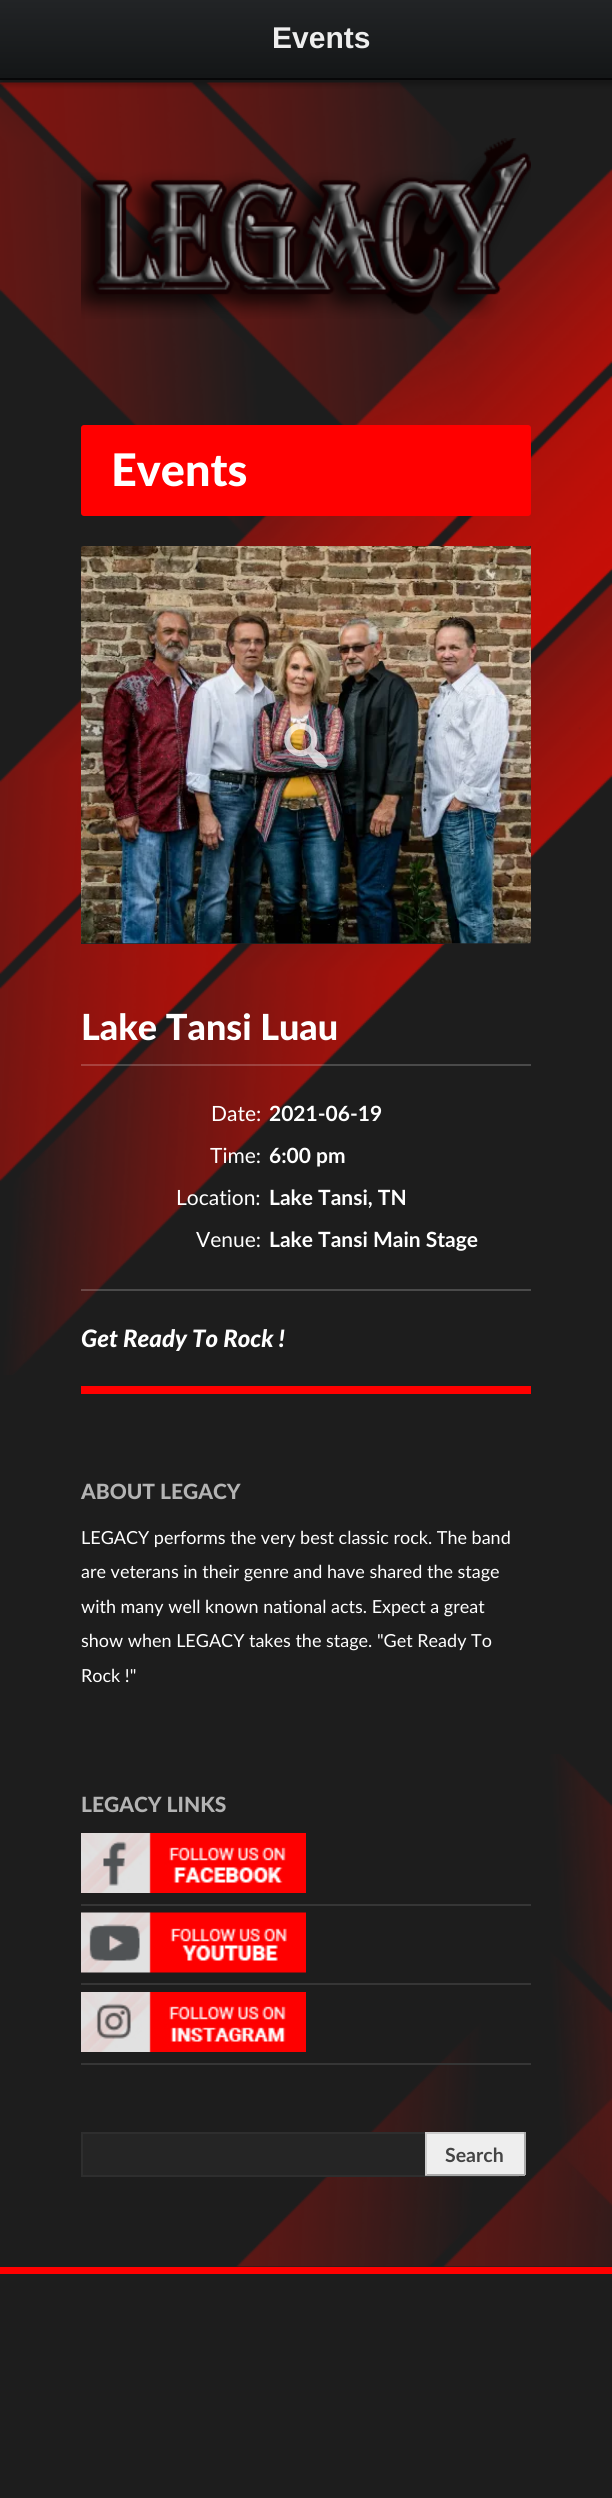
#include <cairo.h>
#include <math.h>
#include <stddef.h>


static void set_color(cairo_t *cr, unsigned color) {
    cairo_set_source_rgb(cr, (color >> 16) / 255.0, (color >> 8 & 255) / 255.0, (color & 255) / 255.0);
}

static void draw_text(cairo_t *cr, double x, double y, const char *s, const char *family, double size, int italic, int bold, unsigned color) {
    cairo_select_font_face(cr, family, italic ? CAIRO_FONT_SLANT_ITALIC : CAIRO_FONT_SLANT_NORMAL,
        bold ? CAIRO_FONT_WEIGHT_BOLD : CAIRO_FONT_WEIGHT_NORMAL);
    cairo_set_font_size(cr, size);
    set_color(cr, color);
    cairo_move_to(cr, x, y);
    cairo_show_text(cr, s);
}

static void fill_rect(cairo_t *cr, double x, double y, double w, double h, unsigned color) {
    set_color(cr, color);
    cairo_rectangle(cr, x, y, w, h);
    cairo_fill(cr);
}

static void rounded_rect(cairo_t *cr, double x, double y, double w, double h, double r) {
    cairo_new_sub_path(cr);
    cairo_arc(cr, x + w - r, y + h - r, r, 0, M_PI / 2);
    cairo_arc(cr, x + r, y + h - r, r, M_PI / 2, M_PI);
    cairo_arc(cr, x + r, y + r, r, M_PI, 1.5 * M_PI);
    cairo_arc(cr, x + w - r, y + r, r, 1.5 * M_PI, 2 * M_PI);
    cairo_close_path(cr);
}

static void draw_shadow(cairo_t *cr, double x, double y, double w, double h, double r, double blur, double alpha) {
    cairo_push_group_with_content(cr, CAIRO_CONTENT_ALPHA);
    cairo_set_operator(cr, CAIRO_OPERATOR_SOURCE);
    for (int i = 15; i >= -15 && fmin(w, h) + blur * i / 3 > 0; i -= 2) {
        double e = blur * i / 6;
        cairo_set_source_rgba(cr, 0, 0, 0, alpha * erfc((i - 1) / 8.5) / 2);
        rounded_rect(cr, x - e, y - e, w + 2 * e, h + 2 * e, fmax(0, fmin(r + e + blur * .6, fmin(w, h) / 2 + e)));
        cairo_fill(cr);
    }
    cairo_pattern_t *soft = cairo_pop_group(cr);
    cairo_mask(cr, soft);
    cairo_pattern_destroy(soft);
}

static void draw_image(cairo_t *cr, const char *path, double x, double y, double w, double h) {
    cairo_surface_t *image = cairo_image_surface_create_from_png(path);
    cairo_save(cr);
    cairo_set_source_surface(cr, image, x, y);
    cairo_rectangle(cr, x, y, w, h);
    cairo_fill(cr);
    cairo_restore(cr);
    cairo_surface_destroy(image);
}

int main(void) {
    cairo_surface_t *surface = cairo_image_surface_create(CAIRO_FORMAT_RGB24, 612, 2498);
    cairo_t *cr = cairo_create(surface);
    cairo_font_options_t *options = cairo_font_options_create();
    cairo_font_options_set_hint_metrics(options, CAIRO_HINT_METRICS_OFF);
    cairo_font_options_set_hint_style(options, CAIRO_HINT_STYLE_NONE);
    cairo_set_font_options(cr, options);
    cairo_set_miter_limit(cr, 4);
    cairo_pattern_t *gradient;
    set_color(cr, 0x1D1D1D);
    cairo_paint(cr);
    fill_rect(cr, 0, 2267, 612, 7, 0xFF0000);
    draw_image(cr, "assets/img1.png", 0, 82, 612, 1293);
    set_color(cr, 0x000000);
    draw_shadow(cr, 0, 6, 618, 80, 0, 2, 0.2);
    gradient = cairo_pattern_create_linear(0, 78, 0, 0);
    cairo_pattern_add_color_stop_rgba(gradient, 0.01, 0.078, 0.086, 0.09, 1);
    cairo_pattern_add_color_stop_rgba(gradient, 1, 0.133, 0.141, 0.149, 1);
    cairo_set_source(cr, gradient);
    cairo_pattern_destroy(gradient);
    cairo_rectangle(cr, 0, 0, 612, 78);
    cairo_fill(cr);
    fill_rect(cr, 0, 78, 612, 2, 0x070708);
    draw_text(cr, 272, 48, "Events", "Liberation Sans", 30, 0, 1, 0xEEEEEE);
    draw_image(cr, "assets/img2.png", 81, 138, 450, 181);
    set_color(cr, 0xFF0000);
    rounded_rect(cr, 81, 425, 450, 91, 3);
    cairo_fill(cr);
    draw_text(cr, 111, 486, "Events", "Lato Black", 45, 0, 0, 0xFFFFFF);
    fill_rect(cr, 81, 546, 450, 398, 0x232323);
    draw_image(cr, "assets/img3.png", 81, 546, 450, 398);
    draw_image(cr, "assets/img4.png", 284, 723, 44, 45);
    draw_text(cr, 81, 1040, "Lake Tansi Luau", "Lato Black", 36, 0, 0, 0xFFFFFF);
    cairo_set_source_rgba(cr, 1, 1, 1, 0.2);
    cairo_rectangle(cr, 81, 1064, 450, 2);
    cairo_fill(cr);
    cairo_rectangle(cr, 81, 1289, 450, 2);
    cairo_fill(cr);
    draw_text(cr, 211, 1121, "Date:", "Lato", 21, 0, 0, 0xFFFFFF);
    draw_text(cr, 269, 1121, "2021-06-19", "Lato", 21, 0, 1, 0xFFFFFF);
    draw_text(cr, 210, 1163, "Time:", "Lato", 21, 0, 0, 0xFFFFFF);
    draw_text(cr, 269, 1163, "6:00 pm", "Lato", 21, 0, 1, 0xFFFFFF);
    draw_text(cr, 176, 1205, "Location:", "Lato", 21, 0, 0, 0xFFFFFF);
    draw_text(cr, 269, 1205, "Lake Tansi, TN", "Lato", 21, 0, 1, 0xFFFFFF);
    draw_text(cr, 196, 1247, "Venue:", "Lato", 21, 0, 0, 0xFFFFFF);
    draw_text(cr, 269, 1247, "Lake Tansi Main Stage", "Lato", 21, 0, 1, 0xFFFFFF);
    draw_text(cr, 81, 1347, "Get Ready To Rock !", "Lato Black", 24, 1, 0, 0xFFFFFF);
    draw_image(cr, "assets/img5.png", 236, 1754, 376, 513);
    fill_rect(cr, 81, 1386, 450, 8, 0xFF0000);
    draw_text(cr, 81, 1499, "ABOUT LEGACY", "Lato Black", 21, 0, 0, 0xB3B3B3);
    draw_text(cr, 81, 1544, "LEGACY performs the very best classic rock. The band", "Lato", 18, 0, 0, 0xFFFFFF);
    draw_text(cr, 81, 1578, "are veterans in their genre and have shared the stage", "Lato", 18, 0, 0, 0xFFFFFF);
    draw_text(cr, 81, 1613, "with many well known national acts. Expect a great", "Lato", 18, 0, 0, 0xFFFFFF);
    draw_text(cr, 81, 1647, "show when LEGACY takes the stage. \"Get Ready To", "Lato", 18, 0, 0, 0xFFFFFF);
    draw_text(cr, 81, 1682, "Rock !\"", "Lato", 18, 0, 0, 0xFFFFFF);
    draw_text(cr, 81, 1812, "LEGACY LINKS", "Lato Black", 21, 0, 0, 0xB3B3B3);
    fill_rect(cr, 81, 1904, 450, 2, 0x363636);
    draw_image(cr, "assets/img6.png", 81, 1833, 225, 60);
    fill_rect(cr, 81, 1983, 450, 2, 0x363636);
    draw_image(cr, "assets/img7.png", 81, 1912, 225, 61);
    fill_rect(cr, 81, 2063, 450, 2, 0x363636);
    draw_image(cr, "assets/img8.png", 81, 1992, 225, 60);
    fill_rect(cr, 83, 2134, 342, 41, 0x252525);
    cairo_rectangle(cr, 82, 2133, 436, 43);
    set_color(cr, 0x2E2E2E);
    cairo_stroke(cr);
    fill_rect(cr, 427, 2134, 97, 40, 0xEEEEEE);
    fill_rect(cr, 425, 2132, 100, 2, 0xCCCCCC);
    fill_rect(cr, 524, 2132, 2, 43, 0xAAAAAA);
    fill_rect(cr, 425, 2174, 100, 2, 0xAAAAAA);
    fill_rect(cr, 425, 2132, 2, 43, 0xCCCCCC);
    draw_text(cr, 445, 2162, "Search", "Lato", 19.5, 0, 1, 0x444444);
    cairo_surface_write_to_png(surface, "output.png");
    cairo_font_options_destroy(options);
    cairo_destroy(cr);
    cairo_surface_destroy(surface);
    return 0;
}
